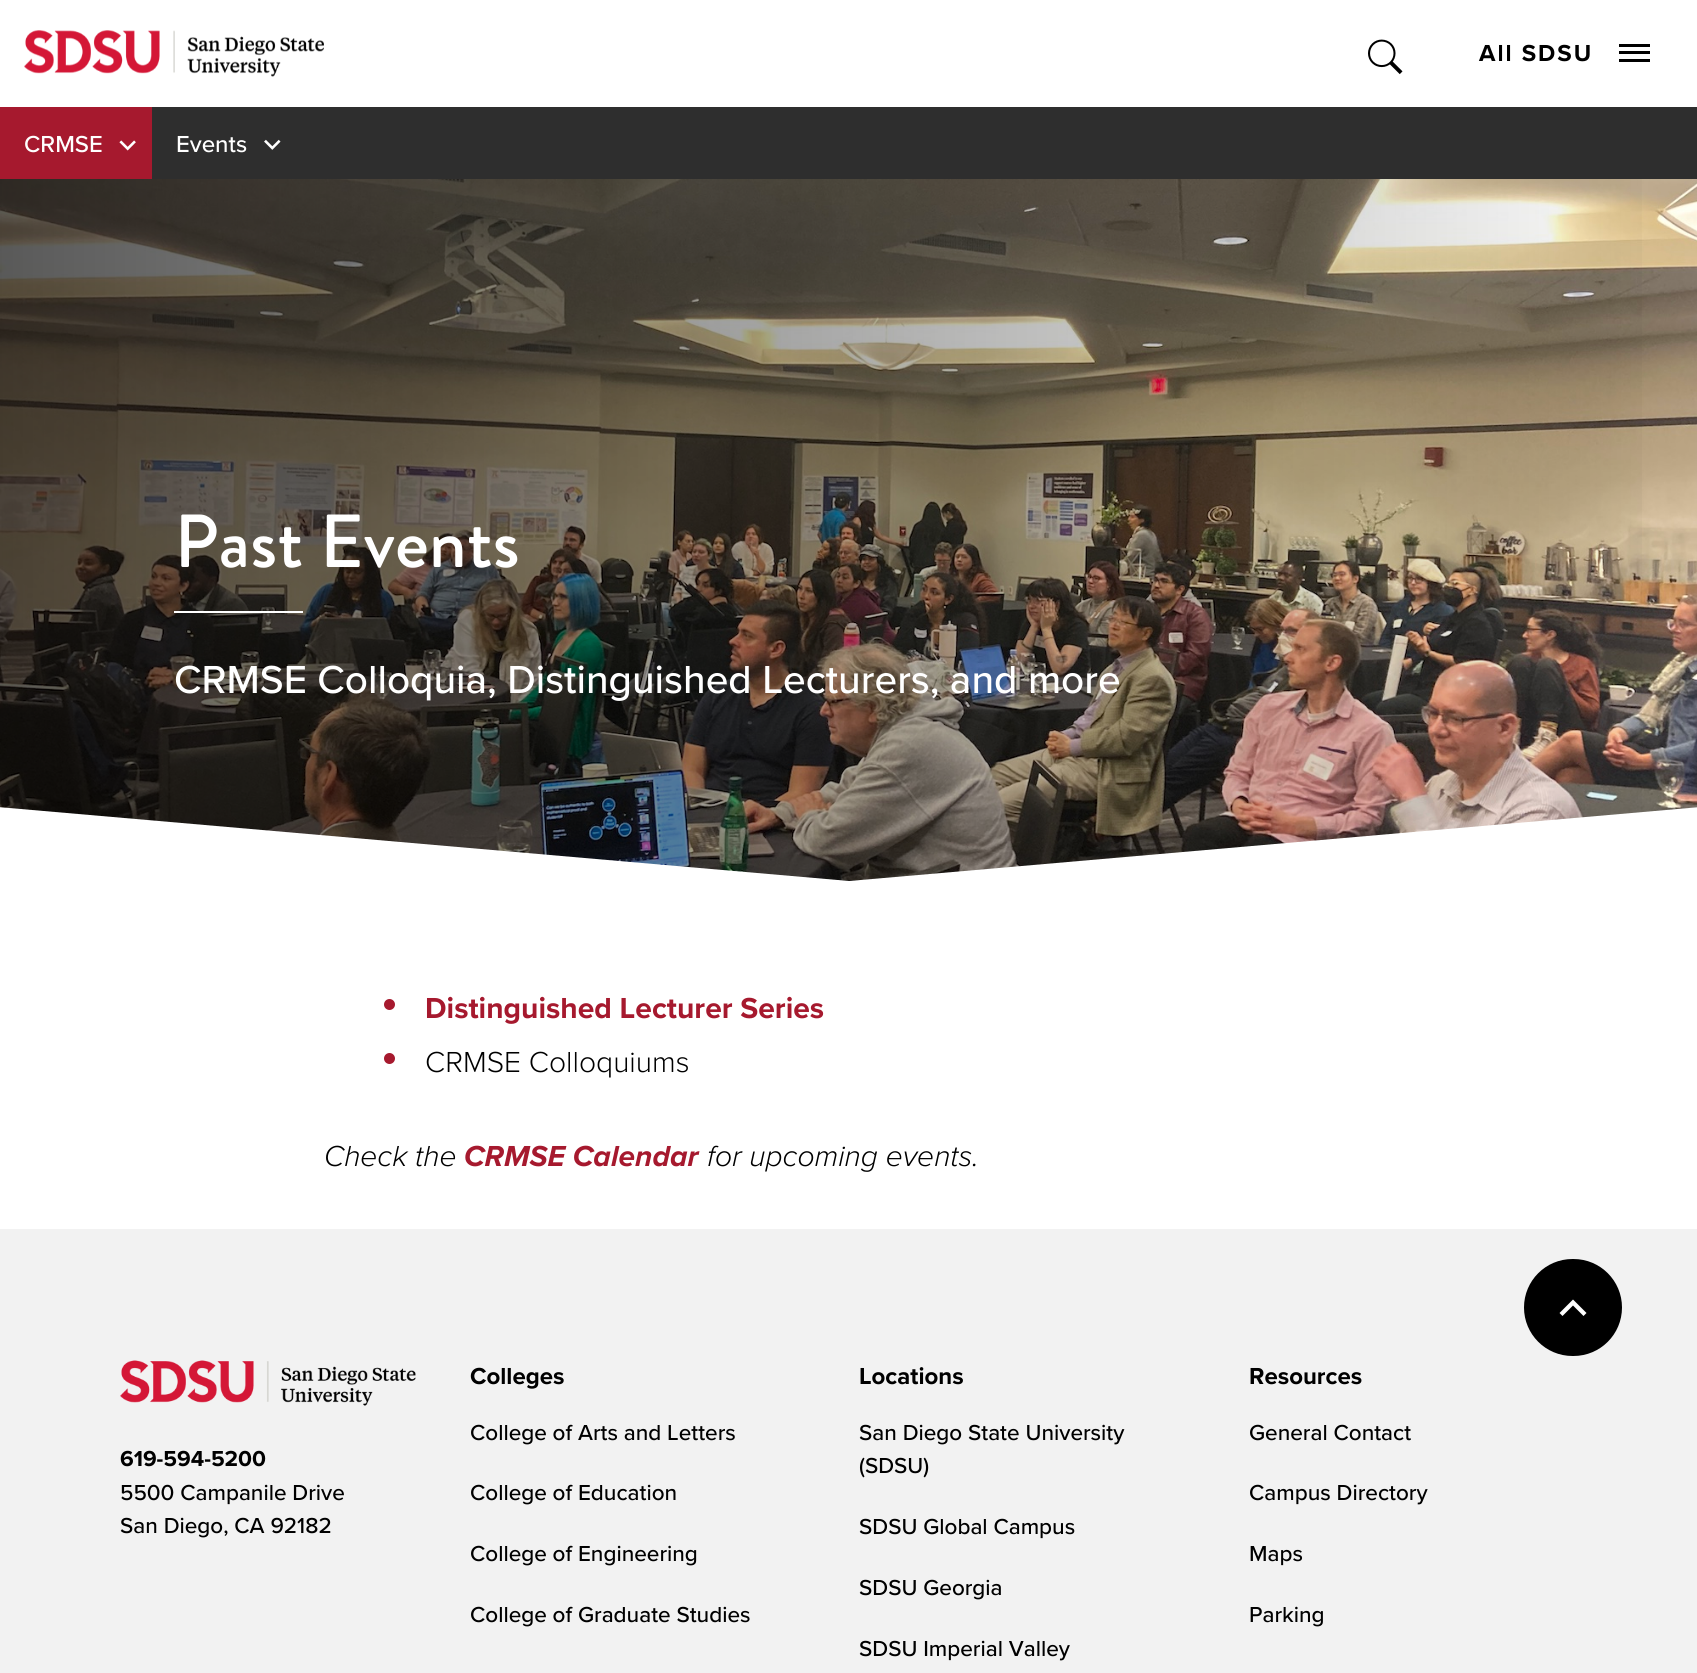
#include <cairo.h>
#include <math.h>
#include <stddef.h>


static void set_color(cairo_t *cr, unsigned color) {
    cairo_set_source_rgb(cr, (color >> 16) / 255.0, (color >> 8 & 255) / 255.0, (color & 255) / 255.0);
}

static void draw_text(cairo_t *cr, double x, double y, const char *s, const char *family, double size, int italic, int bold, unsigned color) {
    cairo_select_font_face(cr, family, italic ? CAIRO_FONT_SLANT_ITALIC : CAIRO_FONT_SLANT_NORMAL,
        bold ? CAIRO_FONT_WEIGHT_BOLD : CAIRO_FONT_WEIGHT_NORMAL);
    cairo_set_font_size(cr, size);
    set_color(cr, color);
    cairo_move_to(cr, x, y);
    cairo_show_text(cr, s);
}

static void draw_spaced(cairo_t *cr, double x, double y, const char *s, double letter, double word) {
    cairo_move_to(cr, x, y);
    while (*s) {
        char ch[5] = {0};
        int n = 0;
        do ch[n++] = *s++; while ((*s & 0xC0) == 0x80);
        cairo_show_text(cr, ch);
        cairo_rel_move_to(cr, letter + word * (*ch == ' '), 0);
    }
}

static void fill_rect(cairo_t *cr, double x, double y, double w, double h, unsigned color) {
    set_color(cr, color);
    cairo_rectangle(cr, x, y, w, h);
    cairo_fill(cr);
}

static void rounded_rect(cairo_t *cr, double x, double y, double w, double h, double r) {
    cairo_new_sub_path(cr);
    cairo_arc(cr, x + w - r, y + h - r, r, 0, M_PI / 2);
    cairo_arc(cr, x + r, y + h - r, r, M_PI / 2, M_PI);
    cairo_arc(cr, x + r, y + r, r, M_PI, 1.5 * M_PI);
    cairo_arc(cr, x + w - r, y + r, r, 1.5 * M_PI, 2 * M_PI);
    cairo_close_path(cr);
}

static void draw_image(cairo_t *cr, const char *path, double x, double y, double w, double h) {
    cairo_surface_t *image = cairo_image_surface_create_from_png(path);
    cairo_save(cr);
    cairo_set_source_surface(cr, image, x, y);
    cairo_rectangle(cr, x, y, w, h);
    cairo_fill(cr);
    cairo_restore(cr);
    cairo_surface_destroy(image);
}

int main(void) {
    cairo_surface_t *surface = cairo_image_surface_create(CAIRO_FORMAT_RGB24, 1697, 1673);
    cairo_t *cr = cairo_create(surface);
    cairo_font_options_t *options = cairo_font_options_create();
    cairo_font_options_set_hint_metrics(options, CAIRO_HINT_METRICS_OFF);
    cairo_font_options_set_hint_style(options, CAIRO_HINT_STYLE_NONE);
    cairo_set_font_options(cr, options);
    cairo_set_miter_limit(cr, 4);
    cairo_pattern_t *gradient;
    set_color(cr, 0xFFFFFF);
    cairo_paint(cr);
    draw_image(cr, "assets/img1.png", 24, 30, 300, 47);
    draw_image(cr, "assets/img2.png", 1368, 39, 35, 36);
    cairo_select_font_face(cr, "Proxima Nova", CAIRO_FONT_SLANT_NORMAL, CAIRO_FONT_WEIGHT_BOLD);
    cairo_set_font_size(cr, 24);
    set_color(cr, 0x000000);
    draw_spaced(cr, 1479, 61, "All SDSU", 2, 0);
    fill_rect(cr, 1619, 44, 31, 3, 0x000000);
    fill_rect(cr, 1619, 51, 31, 3, 0x000000);
    fill_rect(cr, 1619, 59, 31, 3, 0x000000);
    fill_rect(cr, 152, 107, 1545, 72, 0x2E2E2E);
    fill_rect(cr, 0, 107, 152, 72, 0xA6192E);
    draw_text(cr, 24, 152, "CRMSE", "Proxima Nova Medium", 24, 0, 0, 0xFFFFFF);
    draw_image(cr, "assets/img3.png", 119, 140, 17, 11);
    draw_text(cr, 176, 152, "Events", "Proxima Nova Medium", 24, 0, 0, 0xFFFFFF);
    draw_image(cr, "assets/img4.png", 264, 139, 17, 11);
    fill_rect(cr, 838, 880, 23, 1, 0x000000);
    draw_image(cr, "assets/img5.png", 0, 179, 1697, 702);
    gradient = cairo_pattern_create_linear(0, 530, 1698, 529);
    cairo_pattern_add_color_stop_rgba(gradient, 0, 0, 0, 0, 0.65);
    cairo_pattern_add_color_stop_rgba(gradient, 1, 0, 0, 0, 0);
    cairo_set_source(cr, gradient);
    cairo_pattern_destroy(gradient);
    cairo_rectangle(cr, 0, 179, 1642, 702);
    cairo_fill(cr);
    draw_text(cr, 174, 567, "Past Events", "Brandon Grotesque Medium", 75, 0, 0, 0xFFFFFF);
    fill_rect(cr, 174, 611, 129, 2, 0xFFFFFF);
    draw_text(cr, 174, 693, "CRMSE Colloquia, Distinguished Lecturers, and more", "Proxima Nova Medium", 40.5, 0, 0, 0xFFFFFF);
    cairo_save(cr);
    cairo_rectangle(cr, 0, 179, 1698, 702);
    cairo_clip(cr);
    cairo_new_path(cr);
    cairo_move_to(cr, -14, 806);
    cairo_line_to(cr, 849, 881);
    cairo_line_to(cr, 788, 1580);
    cairo_line_to(cr, -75, 1505);
    cairo_close_path(cr);
    cairo_fill(cr);
    cairo_new_path(cr);
    cairo_move_to(cr, 849, 881);
    cairo_line_to(cr, 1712, 806);
    cairo_line_to(cr, 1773, 1505);
    cairo_line_to(cr, 910, 1580);
    cairo_close_path(cr);
    cairo_fill(cr);
    cairo_restore(cr);
    set_color(cr, 0xA6192E);
    cairo_arc(cr, 389.5, 1004.5, 5.5, 0, 2 * M_PI);
    cairo_fill(cr);
    draw_text(cr, 425, 1018, "Distinguished Lecturer Series", "Proxima Nova", 30, 0, 1, 0xA6192E);
    cairo_new_path(cr);
    cairo_arc(cr, 389.5, 1058.5, 5.5, 0, 2 * M_PI);
    cairo_fill(cr);
    draw_text(cr, 425, 1072, "CRMSE Colloquiums", "Proxima Nova Light", 30, 0, 0, 0x000000);
    draw_text(cr, 324, 1166, "Check the", "Proxima Nova Light", 30, 1, 0, 0x000000);
    draw_text(cr, 464, 1166, "CRMSE Calendar", "Proxima Nova", 30, 1, 1, 0xA6192E);
    draw_text(cr, 707, 1166, "for upcoming events.", "Proxima Nova Light", 30, 1, 0, 0x000000);
    fill_rect(cr, 0, 1229, 1697, 444, 0xF2F2F2);
    set_color(cr, 0x000000);
    rounded_rect(cr, 1524, 1259, 98, 97, 48.5);
    cairo_fill(cr);
    set_color(cr, 0xFFFFFF);
    cairo_new_path(cr);
    cairo_move_to(cr, 1586.5, 1313);
    cairo_line_to(cr, 1583.5, 1316);
    cairo_line_to(cr, 1573, 1305.5);
    cairo_line_to(cr, 1562.5, 1316);
    cairo_line_to(cr, 1559.5, 1313);
    cairo_line_to(cr, 1573, 1299.5);
    cairo_close_path(cr);
    cairo_fill(cr);
    draw_image(cr, "assets/img6.png", 120, 1360, 296, 46);
    draw_text(cr, 120, 1466, "619-594-5200", "Proxima Nova", 22.5, 0, 1, 0x000000);
    draw_text(cr, 120, 1500, "5500 Campanile Drive", "Proxima Nova Medium", 22.5, 0, 0, 0x000000);
    draw_text(cr, 120, 1533, "San Diego, CA 92182", "Proxima Nova Medium", 22.5, 0, 0, 0x000000);
    draw_text(cr, 470, 1384, "Colleges", "Proxima Nova", 24, 0, 1, 0x000000);
    draw_text(cr, 470, 1440, "College of Arts and Letters", "Proxima Nova Medium", 22.5, 0, 0, 0x000000);
    draw_text(cr, 470, 1500, "College of Education", "Proxima Nova Medium", 22.5, 0, 0, 0x000000);
    draw_text(cr, 470, 1561, "College of Engineering", "Proxima Nova Medium", 22.5, 0, 0, 0x000000);
    draw_text(cr, 470, 1622, "College of Graduate Studies", "Proxima Nova Medium", 22.5, 0, 0, 0x000000);
    draw_text(cr, 859, 1384, "Locations", "Proxima Nova", 24, 0, 1, 0x000000);
    draw_text(cr, 859, 1440, "San Diego State University", "Proxima Nova Medium", 22.5, 0, 0, 0x000000);
    draw_text(cr, 859, 1473, "(SDSU)", "Proxima Nova Medium", 22.5, 0, 0, 0x000000);
    draw_text(cr, 859, 1534, "SDSU Global Campus", "Proxima Nova Medium", 22.5, 0, 0, 0x000000);
    draw_text(cr, 859, 1595, "SDSU Georgia", "Proxima Nova Medium", 22.5, 0, 0, 0x000000);
    draw_text(cr, 859, 1656, "SDSU Imperial Valley", "Proxima Nova Medium", 22.5, 0, 0, 0x000000);
    draw_text(cr, 1249, 1384, "Resources", "Proxima Nova", 24, 0, 1, 0x000000);
    draw_text(cr, 1249, 1440, "General Contact", "Proxima Nova Medium", 22.5, 0, 0, 0x000000);
    draw_text(cr, 1249, 1500, "Campus Directory", "Proxima Nova Medium", 22.5, 0, 0, 0x000000);
    draw_text(cr, 1249, 1561, "Maps", "Proxima Nova Medium", 22.5, 0, 0, 0x000000);
    draw_text(cr, 1249, 1622, "Parking", "Proxima Nova Medium", 22.5, 0, 0, 0x000000);
    cairo_surface_write_to_png(surface, "output.png");
    cairo_font_options_destroy(options);
    cairo_destroy(cr);
    cairo_surface_destroy(surface);
    return 0;
}
